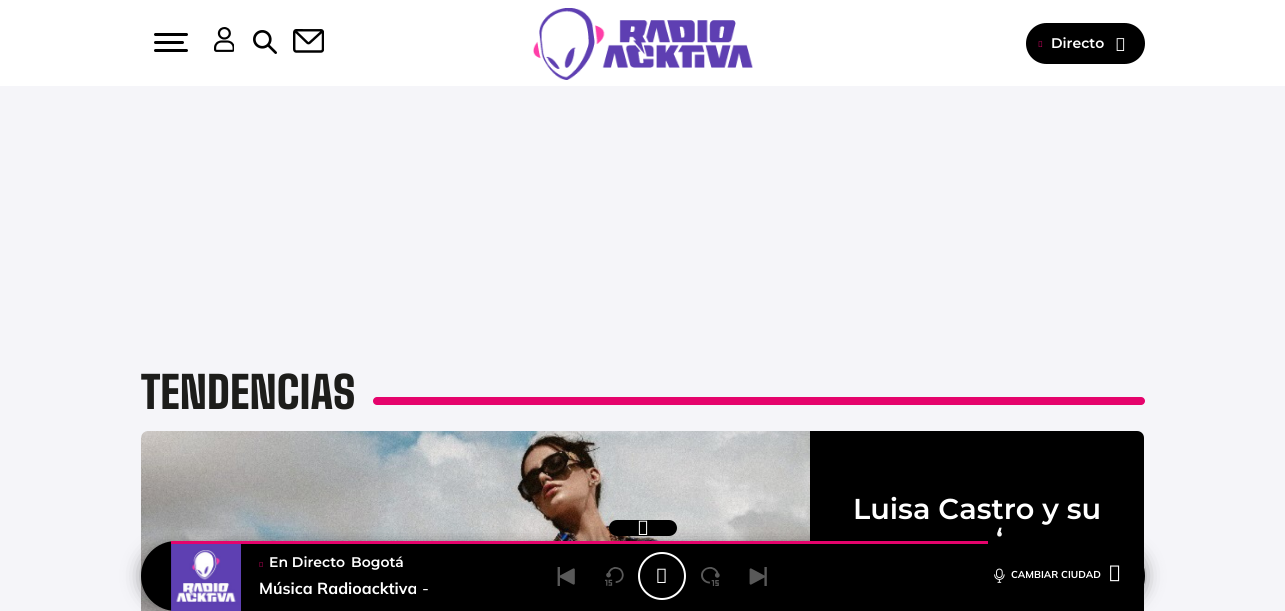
#include <cairo.h>
#include <math.h>
#include <stddef.h>


static void set_color(cairo_t *cr, unsigned color) {
    cairo_set_source_rgb(cr, (color >> 16) / 255.0, (color >> 8 & 255) / 255.0, (color & 255) / 255.0);
}

static void draw_text(cairo_t *cr, double x, double y, const char *s, const char *family, double size, int italic, int bold, unsigned color) {
    cairo_select_font_face(cr, family, italic ? CAIRO_FONT_SLANT_ITALIC : CAIRO_FONT_SLANT_NORMAL,
        bold ? CAIRO_FONT_WEIGHT_BOLD : CAIRO_FONT_WEIGHT_NORMAL);
    cairo_set_font_size(cr, size);
    set_color(cr, color);
    cairo_move_to(cr, x, y);
    cairo_show_text(cr, s);
}

static void fill_rect(cairo_t *cr, double x, double y, double w, double h, unsigned color) {
    set_color(cr, color);
    cairo_rectangle(cr, x, y, w, h);
    cairo_fill(cr);
}

static void rounded_rect(cairo_t *cr, double x, double y, double w, double h, double r) {
    cairo_new_sub_path(cr);
    cairo_arc(cr, x + w - r, y + h - r, r, 0, M_PI / 2);
    cairo_arc(cr, x + r, y + h - r, r, M_PI / 2, M_PI);
    cairo_arc(cr, x + r, y + r, r, M_PI, 1.5 * M_PI);
    cairo_arc(cr, x + w - r, y + r, r, 1.5 * M_PI, 2 * M_PI);
    cairo_close_path(cr);
}

static void draw_shadow(cairo_t *cr, double x, double y, double w, double h, double r, double blur, double alpha) {
    cairo_push_group_with_content(cr, CAIRO_CONTENT_ALPHA);
    cairo_set_operator(cr, CAIRO_OPERATOR_SOURCE);
    for (int i = 15; i >= -15 && fmin(w, h) + blur * i / 3 > 0; i -= 2) {
        double e = blur * i / 6;
        cairo_set_source_rgba(cr, 0, 0, 0, alpha * erfc((i - 1) / 8.5) / 2);
        rounded_rect(cr, x - e, y - e, w + 2 * e, h + 2 * e, fmax(0, fmin(r + e + blur * .6, fmin(w, h) / 2 + e)));
        cairo_fill(cr);
    }
    cairo_pattern_t *soft = cairo_pop_group(cr);
    cairo_mask(cr, soft);
    cairo_pattern_destroy(soft);
}

static void draw_image(cairo_t *cr, const char *path, double x, double y, double w, double h) {
    cairo_surface_t *image = cairo_image_surface_create_from_png(path);
    cairo_save(cr);
    cairo_set_source_surface(cr, image, x, y);
    cairo_rectangle(cr, x, y, w, h);
    cairo_fill(cr);
    cairo_restore(cr);
    cairo_surface_destroy(image);
}

int main(void) {
    cairo_surface_t *surface = cairo_image_surface_create(CAIRO_FORMAT_RGB24, 1285, 611);
    cairo_t *cr = cairo_create(surface);
    cairo_font_options_t *options = cairo_font_options_create();
    cairo_font_options_set_hint_metrics(options, CAIRO_HINT_METRICS_OFF);
    cairo_font_options_set_hint_style(options, CAIRO_HINT_STYLE_NONE);
    cairo_set_font_options(cr, options);
    cairo_set_miter_limit(cr, 4);
    set_color(cr, 0xF5F5F9);
    cairo_paint(cr);
    fill_rect(cr, 0, 0, 1285, 86, 0xFFFFFF);
    set_color(cr, 0x000000);
    rounded_rect(cr, 154, 41, 30, 3, 1.5);
    cairo_fill(cr);
    rounded_rect(cr, 154, 33, 34, 3, 1.5);
    cairo_fill(cr);
    rounded_rect(cr, 154, 49, 34, 3, 1.5);
    cairo_fill(cr);
    draw_image(cr, "assets/img1.png", 214, 27, 20, 25);
    draw_image(cr, "assets/img2.png", 253, 30, 24, 24);
    draw_image(cr, "assets/img3.png", 293, 29, 31, 24);
    draw_image(cr, "assets/img4.png", 533, 8, 220, 72);
    rounded_rect(cr, 1026, 23, 119, 41, 20.5);
    cairo_fill(cr);
    draw_image(cr, "assets/img5.png", 1038, 41, 5, 6);
    draw_text(cr, 1051, 48, "Directo", "Montserrat SemiBold", 14, 0, 0, 0xFFFFFF);
    draw_image(cr, "assets/img6.png", 1116, 38, 9, 13);
    draw_text(cr, 141, 409, "TENDENCIAS", "Big Shoulders Text Black", 44, 0, 0, 0x1D1D1B);
    set_color(cr, 0xE5036C);
    rounded_rect(cr, 373, 397, 772, 8, 4);
    cairo_fill(cr);
    draw_image(cr, "assets/img7.png", 141, 431, 669, 180);
    set_color(cr, 0x000000);
    cairo_new_path(cr);
    cairo_move_to(cr, 810, 431);
    cairo_line_to(cr, 1137, 431);
    cairo_curve_to(cr, 1141, 431, 1144, 434, 1144, 438);
    cairo_line_to(cr, 1144, 611);
    cairo_curve_to(cr, 1144, 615, 1141, 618, 1137, 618);
    cairo_line_to(cr, 810, 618);
    cairo_close_path(cr);
    cairo_fill(cr);
    draw_text(cr, 853, 519, "Luisa Castro y su", "Montserrat SemiBold", 28.75, 0, 0, 0xFFFFFF);
    draw_text(cr, 996, 549, "‘", "Montserrat SemiBold", 28.75, 0, 0, 0xFFFFFF);
    set_color(cr, 0x000000);
    draw_shadow(cr, 158, 551, 984, 50, 25, 10, 0.5);
    draw_shadow(cr, 144, 551, 984, 50, 25, 10, 0.5);
    set_color(cr, 0x000000);
    rounded_rect(cr, 141, 541, 1004, 70, 35);
    cairo_fill(cr);
    fill_rect(cr, 171, 541, 817, 3, 0xE5036C);
    set_color(cr, 0x000000);
    rounded_rect(cr, 609, 520, 68, 16, 8);
    cairo_fill(cr);
    draw_image(cr, "assets/img8.png", 638, 520, 10, 15);
    draw_image(cr, "assets/img9.png", 171, 544, 70, 67);
    draw_image(cr, "assets/img10.png", 259, 562, 4, 5);
    draw_text(cr, 269, 567, "En Directo", "Montserrat SemiBold", 14, 0, 0, 0xFFFFFF);
    draw_text(cr, 351, 567, "Bogotá", "Montserrat SemiBold", 14, 0, 0, 0xFFFFFF);
    draw_text(cr, 259, 594, "Música Radioacktiva", "Mulish", 16, 0, 1, 0xFFFFFF);
    draw_text(cr, 422, 594, "-", "Mulish Medium", 16, 0, 0, 0xFFFFFF);
    draw_image(cr, "assets/img11.png", 557, 567, 18, 19);
    draw_image(cr, "assets/img12.png", 605, 567, 19, 19);
    cairo_arc(cr, 662, 576, 23, 0, 2 * M_PI);
    cairo_stroke(cr);
    draw_image(cr, "assets/img13.png", 657, 568, 9, 15);
    draw_image(cr, "assets/img14.png", 701, 567, 19, 19);
    draw_image(cr, "assets/img15.png", 749, 567, 18, 19);
    draw_image(cr, "assets/img16.png", 994, 568, 11, 15);
    draw_text(cr, 1011, 578, "CAMBIAR CIUDAD", "Mulish", 10, 0, 1, 0xFFFFFF);
    draw_image(cr, "assets/img17.png", 1110, 565, 10, 17);
    cairo_surface_write_to_png(surface, "output.png");
    cairo_font_options_destroy(options);
    cairo_destroy(cr);
    cairo_surface_destroy(surface);
    return 0;
}
